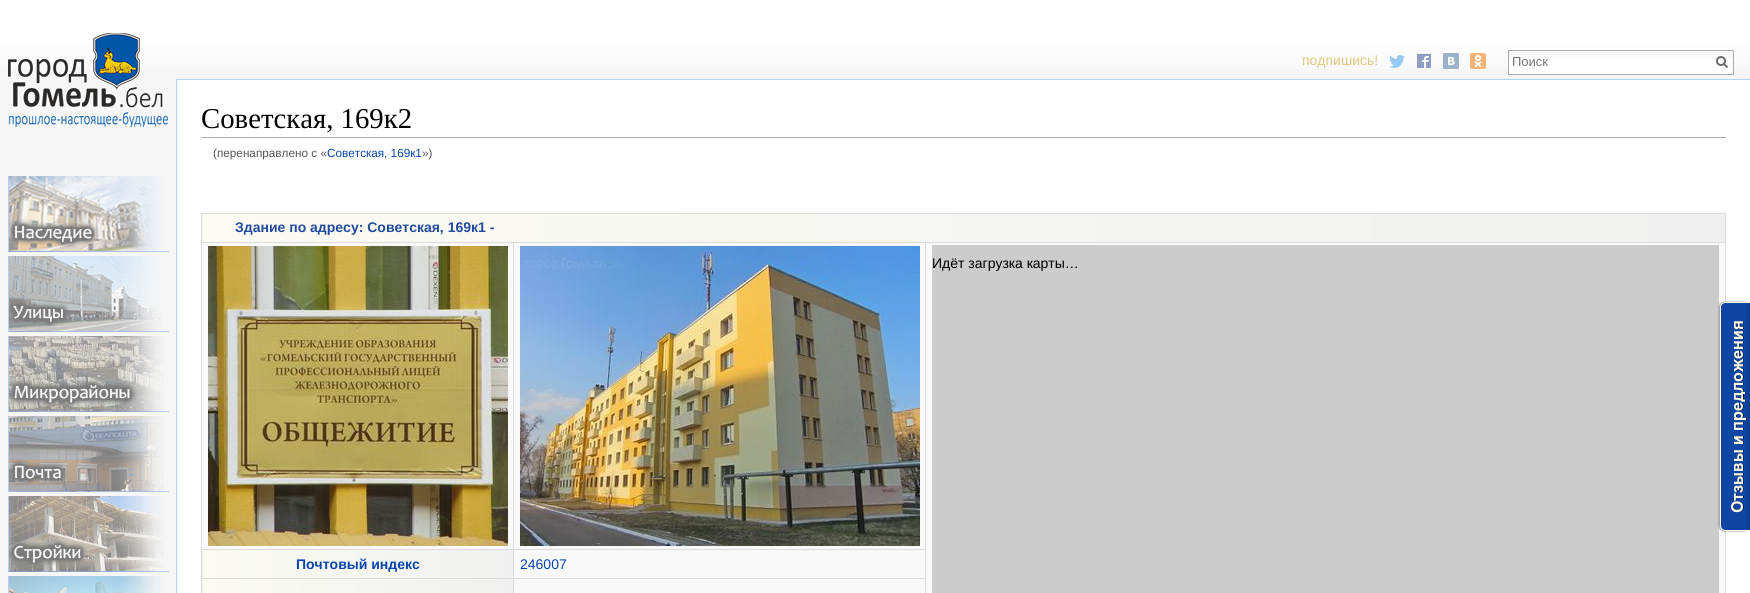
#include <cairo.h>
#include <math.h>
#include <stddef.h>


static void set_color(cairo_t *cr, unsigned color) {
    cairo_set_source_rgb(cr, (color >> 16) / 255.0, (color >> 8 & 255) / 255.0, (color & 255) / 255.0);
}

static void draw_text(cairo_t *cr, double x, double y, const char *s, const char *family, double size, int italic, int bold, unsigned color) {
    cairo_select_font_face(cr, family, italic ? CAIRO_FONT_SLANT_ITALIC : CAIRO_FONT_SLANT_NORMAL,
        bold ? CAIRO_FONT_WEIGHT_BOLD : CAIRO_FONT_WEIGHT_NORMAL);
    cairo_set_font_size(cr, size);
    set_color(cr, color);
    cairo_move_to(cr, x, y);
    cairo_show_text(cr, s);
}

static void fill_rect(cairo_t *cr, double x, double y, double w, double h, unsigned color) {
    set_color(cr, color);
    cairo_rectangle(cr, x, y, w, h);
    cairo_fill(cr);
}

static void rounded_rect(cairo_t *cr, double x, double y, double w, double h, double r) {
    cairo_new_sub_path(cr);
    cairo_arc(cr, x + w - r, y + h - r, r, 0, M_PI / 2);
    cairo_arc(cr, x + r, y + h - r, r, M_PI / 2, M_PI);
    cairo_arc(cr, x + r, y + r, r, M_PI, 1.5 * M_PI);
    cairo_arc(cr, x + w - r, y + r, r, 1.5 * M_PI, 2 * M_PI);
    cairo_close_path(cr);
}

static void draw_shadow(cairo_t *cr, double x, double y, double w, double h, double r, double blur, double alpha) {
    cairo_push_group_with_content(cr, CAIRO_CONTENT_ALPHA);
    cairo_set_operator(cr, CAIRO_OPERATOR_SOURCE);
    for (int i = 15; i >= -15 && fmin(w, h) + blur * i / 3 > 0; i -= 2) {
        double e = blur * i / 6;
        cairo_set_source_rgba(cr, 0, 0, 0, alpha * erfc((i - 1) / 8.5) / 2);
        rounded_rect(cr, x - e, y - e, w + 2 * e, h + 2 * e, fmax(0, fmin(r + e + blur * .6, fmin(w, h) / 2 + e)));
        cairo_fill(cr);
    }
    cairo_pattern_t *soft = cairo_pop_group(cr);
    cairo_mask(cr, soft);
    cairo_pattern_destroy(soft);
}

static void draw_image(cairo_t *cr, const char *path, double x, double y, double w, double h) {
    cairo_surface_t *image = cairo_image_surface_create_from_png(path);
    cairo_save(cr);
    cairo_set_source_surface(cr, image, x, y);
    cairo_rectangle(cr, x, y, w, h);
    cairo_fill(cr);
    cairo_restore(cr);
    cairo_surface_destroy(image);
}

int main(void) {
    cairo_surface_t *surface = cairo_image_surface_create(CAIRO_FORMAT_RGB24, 1750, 593);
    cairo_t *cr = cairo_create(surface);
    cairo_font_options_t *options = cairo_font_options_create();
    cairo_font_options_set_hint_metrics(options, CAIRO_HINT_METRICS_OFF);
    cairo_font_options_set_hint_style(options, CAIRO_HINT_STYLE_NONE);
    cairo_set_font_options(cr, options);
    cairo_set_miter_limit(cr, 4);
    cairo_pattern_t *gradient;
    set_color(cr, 0xF6F6F6);
    cairo_paint(cr);
    gradient = cairo_pattern_create_linear(875, 0, 875, 80);
    cairo_pattern_add_color_stop_rgba(gradient, 0.5, 1, 1, 1, 1);
    cairo_pattern_add_color_stop_rgba(gradient, 1, 0.965, 0.965, 0.965, 1);
    cairo_set_source(cr, gradient);
    cairo_pattern_destroy(gradient);
    cairo_rectangle(cr, 0, 0, 1750, 69);
    cairo_fill(cr);
    draw_image(cr, "assets/img1.png", 8, 33, 160, 94);
    draw_image(cr, "assets/img2.png", 9, 176, 154, 76);
    cairo_set_source_rgba(cr, 0.459, 0.627, 0.961, 0.5);
    cairo_rectangle(cr, 8, 251, 161, 1);
    cairo_fill(cr);
    fill_rect(cr, 8, 176, 1, 76, 0xB6CBF6);
    draw_image(cr, "assets/img3.png", 9, 256, 152, 76);
    cairo_set_source_rgba(cr, 0.459, 0.627, 0.961, 0.5);
    cairo_rectangle(cr, 8, 331, 161, 1);
    cairo_fill(cr);
    fill_rect(cr, 8, 256, 1, 76, 0xB6CBF6);
    draw_image(cr, "assets/img4.png", 9, 336, 155, 76);
    cairo_set_source_rgba(cr, 0.459, 0.627, 0.961, 0.5);
    cairo_rectangle(cr, 8, 411, 161, 1);
    cairo_fill(cr);
    fill_rect(cr, 8, 336, 1, 76, 0xB6CBF6);
    draw_image(cr, "assets/img5.png", 9, 416, 155, 76);
    cairo_set_source_rgba(cr, 0.459, 0.627, 0.961, 0.5);
    cairo_rectangle(cr, 8, 491, 161, 1);
    cairo_fill(cr);
    fill_rect(cr, 8, 416, 1, 76, 0xB6CBF6);
    draw_image(cr, "assets/img6.png", 9, 496, 155, 76);
    cairo_set_source_rgba(cr, 0.459, 0.627, 0.961, 0.5);
    cairo_rectangle(cr, 8, 571, 161, 1);
    cairo_fill(cr);
    fill_rect(cr, 8, 496, 1, 76, 0xB6CBF6);
    draw_image(cr, "assets/img7.png", 9, 576, 155, 17);
    fill_rect(cr, 8, 576, 1, 17, 0xB6CBF6);
    draw_text(cr, 1302, 65, "подпишись!", "Liberation Sans", 14, 0, 0, 0xDCC97E);
    draw_image(cr, "assets/img8.png", 1389, 55, 16, 13);
    draw_image(cr, "assets/img9.png", 1417, 54, 14, 14);
    draw_image(cr, "assets/img10.png", 1443, 53, 16, 16);
    draw_image(cr, "assets/img11.png", 1470, 53, 16, 16);
    fill_rect(cr, 1509, 59, 224, 15, 0xFFFFFF);
    draw_image(cr, "assets/img12.png", 1509, 51, 224, 8);
    cairo_rectangle(cr, 1508.5, 50.5, 225, 24);
    set_color(cr, 0xAAAAAA);
    cairo_set_line_width(cr, 1);
    cairo_stroke(cr);
    draw_text(cr, 1512, 66, "Поиск", "Liberation Sans", 13, 0, 0, 0x757575);
    cairo_new_path(cr);
    cairo_move_to(cr, 1727.5, 67.5);
    cairo_line_to(cr, 1723.5, 63.5);
    set_color(cr, 0x6C6C6C);
    cairo_set_line_width(cr, 2);
    cairo_stroke(cr);
    cairo_arc(cr, 1721, 61, 4, 0, 2 * M_PI);
    cairo_stroke(cr);
    fill_rect(cr, 177, 80, 1573, 513, 0xFFFFFF);
    fill_rect(cr, 176, 79, 1574, 1, 0xA7D7F9);
    fill_rect(cr, 176, 79, 1, 514, 0xA7D7F9);
    fill_rect(cr, 201, 137, 1525, 1, 0xAAAAAA);
    draw_text(cr, 201, 128, "Советская, 169к2", "Liberation Serif", 28.75, 0, 0, 0x000000);
    draw_text(cr, 213, 157, "(перенаправлено с «", "Liberation Sans", 11.75, 0, 0, 0x545454);
    draw_text(cr, 327, 157, "Советская, 169к1", "Liberation Sans", 11.75, 0, 0, 0x0645AD);
    draw_text(cr, 422, 157, "»)", "Liberation Sans", 11.75, 0, 0, 0x545454);
    fill_rect(cr, 202, 243, 1523, 350, 0xF9F9F9);
    fill_rect(cr, 202, 214, 1, 28, 0xF5F5F5);
    gradient = cairo_pattern_create_linear(203, 228, 1725, 227);
    cairo_pattern_add_color_stop_rgba(gradient, 0, 0.984, 0.984, 0.953, 1);
    cairo_pattern_add_color_stop_rgba(gradient, 1, 0.941, 0.941, 0.941, 1);
    cairo_set_source(cr, gradient);
    cairo_pattern_destroy(gradient);
    cairo_rectangle(cr, 203, 214, 1522, 28);
    cairo_fill(cr);
    fill_rect(cr, 201, 213, 1525, 1, 0xDCDCDC);
    fill_rect(cr, 925, 242, 801, 1, 0xDCDCDC);
    fill_rect(cr, 1725, 242, 1, 351, 0xDCDCDC);
    fill_rect(cr, 1725, 213, 1, 30, 0xDCDCDC);
    fill_rect(cr, 513, 549, 413, 1, 0xDCDCDC);
    fill_rect(cr, 513, 578, 413, 1, 0xDCDCDC);
    fill_rect(cr, 925, 242, 1, 351, 0xDCDCDC);
    fill_rect(cr, 513, 242, 413, 1, 0xDCDCDC);
    gradient = cairo_pattern_create_linear(-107, 564, 203, 564);
    cairo_pattern_add_color_stop_rgba(gradient, 0, 0.984, 0.984, 0.953, 1);
    cairo_pattern_add_color_stop_rgba(gradient, 1, 0.941, 0.941, 0.941, 1);
    cairo_set_source(cr, gradient);
    cairo_pattern_destroy(gradient);
    cairo_rectangle(cr, 202, 549, 1, 29);
    cairo_fill(cr);
    gradient = cairo_pattern_create_linear(-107, 593, 203, 593);
    cairo_pattern_add_color_stop_rgba(gradient, 0, 0.984, 0.984, 0.953, 1);
    cairo_pattern_add_color_stop_rgba(gradient, 1, 0.941, 0.941, 0.941, 1);
    cairo_set_source(cr, gradient);
    cairo_pattern_destroy(gradient);
    cairo_rectangle(cr, 202, 578, 1, 15);
    cairo_fill(cr);
    fill_rect(cr, 513, 578, 1, 15, 0xDCDCDC);
    fill_rect(cr, 201, 578, 313, 1, 0xDCDCDC);
    fill_rect(cr, 513, 549, 1, 30, 0xDCDCDC);
    fill_rect(cr, 201, 549, 313, 1, 0xDCDCDC);
    fill_rect(cr, 513, 242, 1, 308, 0xDCDCDC);
    fill_rect(cr, 201, 242, 313, 1, 0xDCDCDC);
    fill_rect(cr, 201, 578, 1, 15, 0xDCDCDC);
    fill_rect(cr, 201, 549, 1, 30, 0xDCDCDC);
    fill_rect(cr, 201, 242, 1, 308, 0xDCDCDC);
    fill_rect(cr, 201, 213, 1, 30, 0xDCDCDC);
    draw_text(cr, 235, 232, "Здание по адресу: Советская, 169к1 -", "Liberation Sans", 14, 0, 1, 0x224B9E);
    draw_image(cr, "assets/img13.png", 208, 246, 300, 300);
    draw_image(cr, "assets/img14.png", 520, 246, 400, 300);
    fill_rect(cr, 932, 245, 787, 348, 0xCCCCCC);
    draw_text(cr, 932, 268, "Идёт загрузка карты…", "Liberation Sans", 14, 0, 0, 0x000000);
    gradient = cairo_pattern_create_linear(203, 564, 513, 564);
    cairo_pattern_add_color_stop_rgba(gradient, 0, 0.984, 0.984, 0.953, 1);
    cairo_pattern_add_color_stop_rgba(gradient, 1, 0.941, 0.941, 0.941, 1);
    cairo_set_source(cr, gradient);
    cairo_pattern_destroy(gradient);
    cairo_rectangle(cr, 203, 550, 310, 28);
    cairo_fill(cr);
    draw_text(cr, 296, 569, "Почтовый индекс", "Liberation Sans", 14, 0, 1, 0x0645AD);
    draw_text(cr, 520, 569, "246007", "Liberation Sans", 14, 0, 0, 0x0645AD);
    gradient = cairo_pattern_create_linear(203, 593, 513, 593);
    cairo_pattern_add_color_stop_rgba(gradient, 0, 0.984, 0.984, 0.953, 1);
    cairo_pattern_add_color_stop_rgba(gradient, 1, 0.941, 0.941, 0.941, 1);
    cairo_set_source(cr, gradient);
    cairo_pattern_destroy(gradient);
    cairo_rectangle(cr, 203, 579, 310, 14);
    cairo_fill(cr);
    set_color(cr, 0x888888);
    draw_shadow(cr, 1719, 302, 30, 229, 5, 1, 1);
    set_color(cr, 0x0F45A3);
    cairo_new_path(cr);
    cairo_move_to(cr, 1725, 302);
    cairo_line_to(cr, 1750, 302);
    cairo_line_to(cr, 1750, 531);
    cairo_line_to(cr, 1725, 531);
    cairo_curve_to(cr, 1722, 531, 1720, 529, 1720, 526);
    cairo_line_to(cr, 1720, 307);
    cairo_curve_to(cr, 1720, 304, 1722, 302, 1725, 302);
    cairo_close_path(cr);
    cairo_fill(cr);
    draw_image(cr, "assets/img15.png", 1746, 303, 4, 227);
    set_color(cr, 0xFFFAE3);
    cairo_set_fill_rule(cr, CAIRO_FILL_RULE_EVEN_ODD);
    cairo_new_path(cr);
    cairo_move_to(cr, 1725, 302);
    cairo_line_to(cr, 1750, 302);
    cairo_line_to(cr, 1750, 531);
    cairo_line_to(cr, 1725, 531);
    cairo_curve_to(cr, 1722, 531, 1720, 529, 1720, 526);
    cairo_line_to(cr, 1720, 307);
    cairo_curve_to(cr, 1720, 304, 1722, 302, 1725, 302);
    cairo_close_path(cr);
    cairo_move_to(cr, 1725, 303);
    cairo_line_to(cr, 1750, 303);
    cairo_line_to(cr, 1750, 530);
    cairo_line_to(cr, 1725, 530);
    cairo_curve_to(cr, 1723, 530, 1721, 528, 1721, 526);
    cairo_line_to(cr, 1721, 307);
    cairo_curve_to(cr, 1721, 305, 1723, 303, 1725, 303);
    cairo_close_path(cr);
    cairo_fill(cr);
    draw_image(cr, "assets/img16.png", 1731, 321, 16, 192);
    cairo_surface_write_to_png(surface, "output.png");
    cairo_font_options_destroy(options);
    cairo_destroy(cr);
    cairo_surface_destroy(surface);
    return 0;
}
